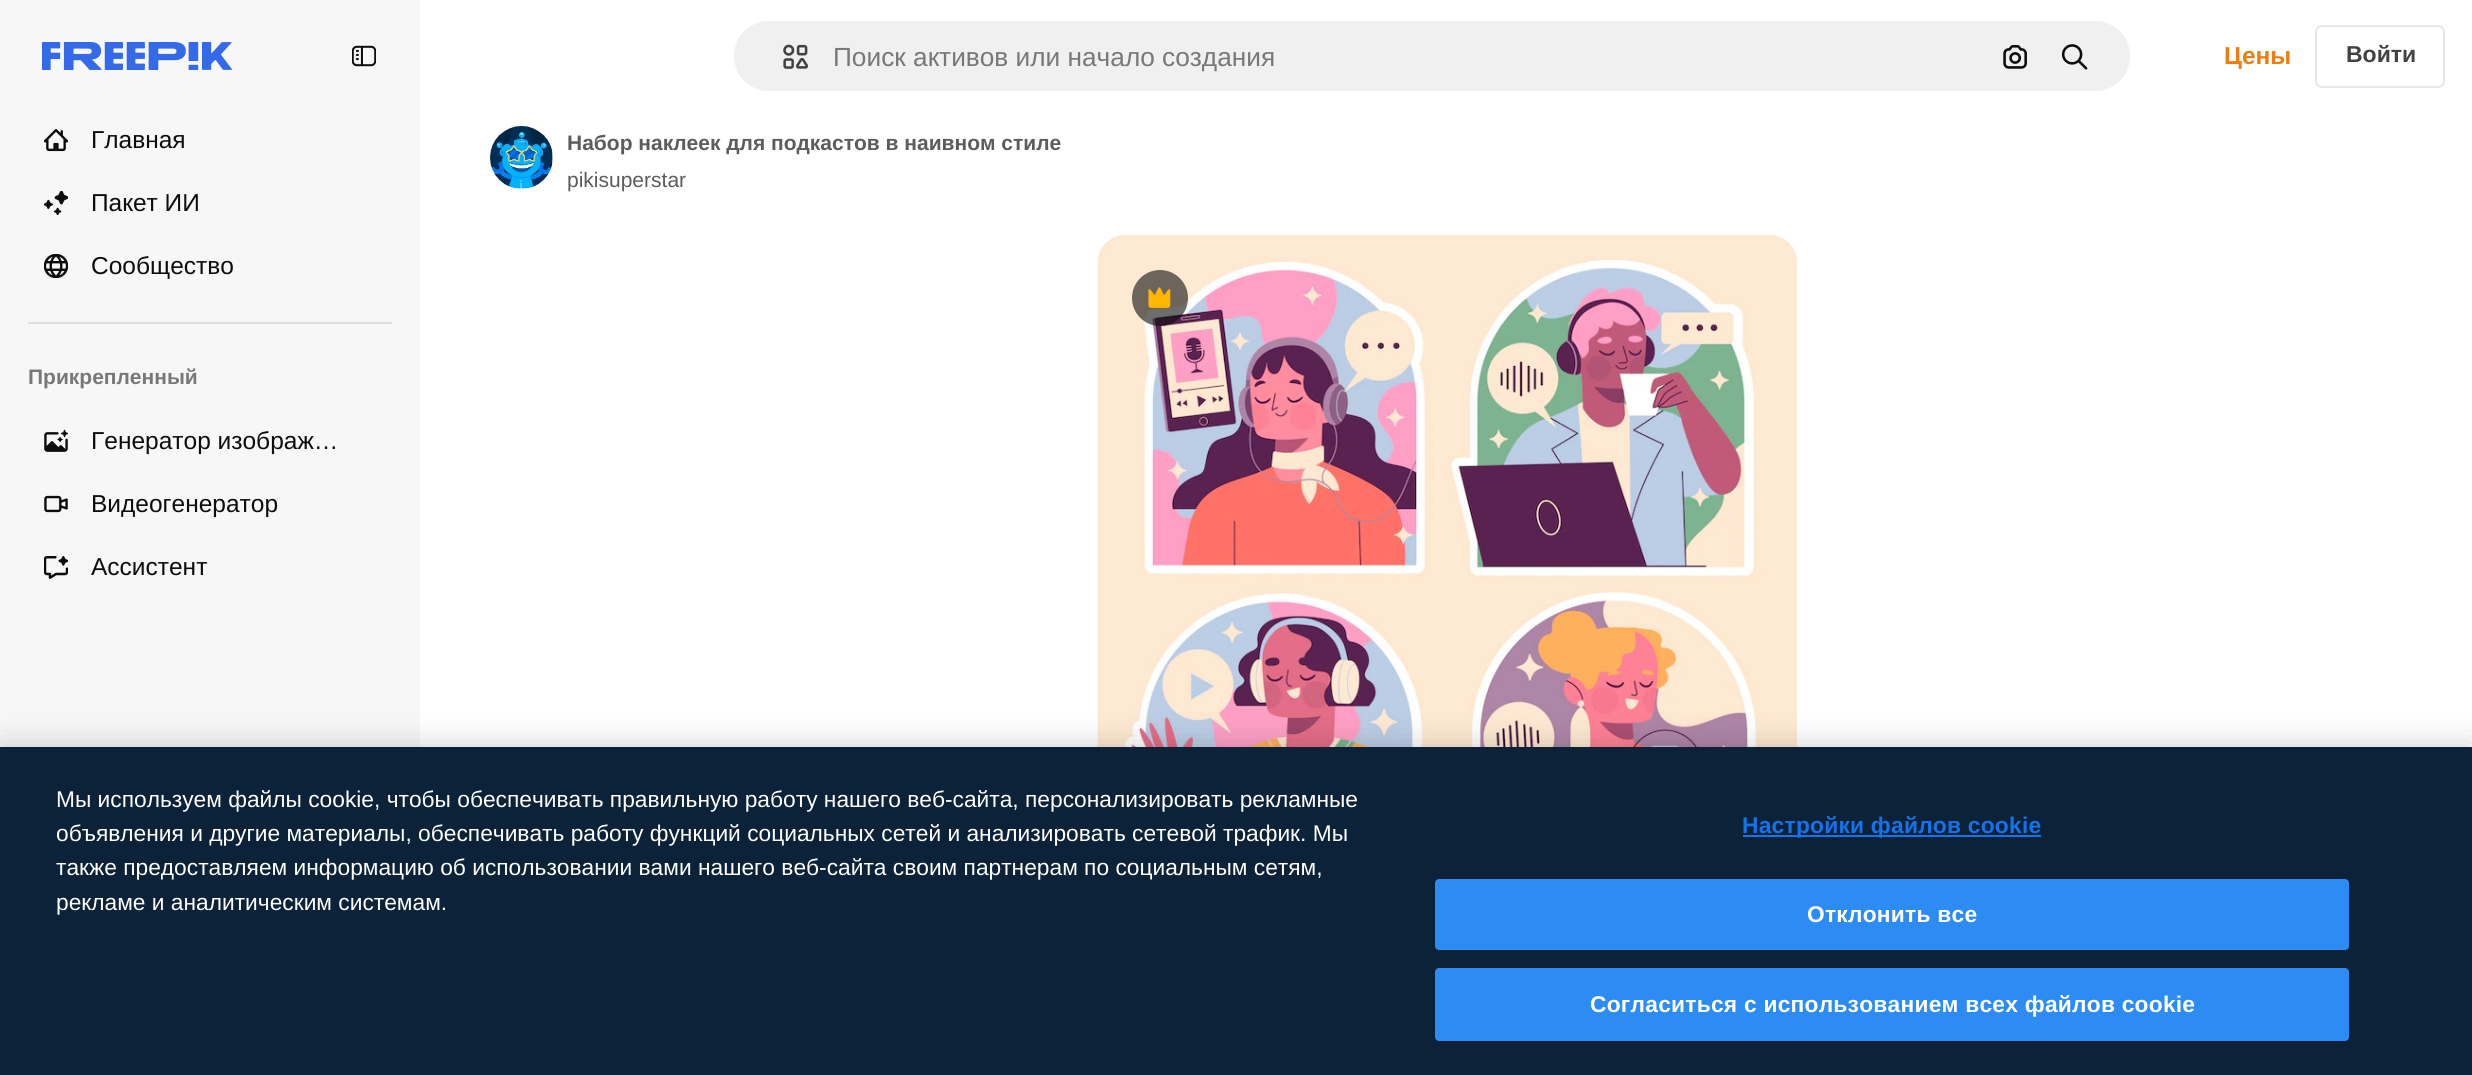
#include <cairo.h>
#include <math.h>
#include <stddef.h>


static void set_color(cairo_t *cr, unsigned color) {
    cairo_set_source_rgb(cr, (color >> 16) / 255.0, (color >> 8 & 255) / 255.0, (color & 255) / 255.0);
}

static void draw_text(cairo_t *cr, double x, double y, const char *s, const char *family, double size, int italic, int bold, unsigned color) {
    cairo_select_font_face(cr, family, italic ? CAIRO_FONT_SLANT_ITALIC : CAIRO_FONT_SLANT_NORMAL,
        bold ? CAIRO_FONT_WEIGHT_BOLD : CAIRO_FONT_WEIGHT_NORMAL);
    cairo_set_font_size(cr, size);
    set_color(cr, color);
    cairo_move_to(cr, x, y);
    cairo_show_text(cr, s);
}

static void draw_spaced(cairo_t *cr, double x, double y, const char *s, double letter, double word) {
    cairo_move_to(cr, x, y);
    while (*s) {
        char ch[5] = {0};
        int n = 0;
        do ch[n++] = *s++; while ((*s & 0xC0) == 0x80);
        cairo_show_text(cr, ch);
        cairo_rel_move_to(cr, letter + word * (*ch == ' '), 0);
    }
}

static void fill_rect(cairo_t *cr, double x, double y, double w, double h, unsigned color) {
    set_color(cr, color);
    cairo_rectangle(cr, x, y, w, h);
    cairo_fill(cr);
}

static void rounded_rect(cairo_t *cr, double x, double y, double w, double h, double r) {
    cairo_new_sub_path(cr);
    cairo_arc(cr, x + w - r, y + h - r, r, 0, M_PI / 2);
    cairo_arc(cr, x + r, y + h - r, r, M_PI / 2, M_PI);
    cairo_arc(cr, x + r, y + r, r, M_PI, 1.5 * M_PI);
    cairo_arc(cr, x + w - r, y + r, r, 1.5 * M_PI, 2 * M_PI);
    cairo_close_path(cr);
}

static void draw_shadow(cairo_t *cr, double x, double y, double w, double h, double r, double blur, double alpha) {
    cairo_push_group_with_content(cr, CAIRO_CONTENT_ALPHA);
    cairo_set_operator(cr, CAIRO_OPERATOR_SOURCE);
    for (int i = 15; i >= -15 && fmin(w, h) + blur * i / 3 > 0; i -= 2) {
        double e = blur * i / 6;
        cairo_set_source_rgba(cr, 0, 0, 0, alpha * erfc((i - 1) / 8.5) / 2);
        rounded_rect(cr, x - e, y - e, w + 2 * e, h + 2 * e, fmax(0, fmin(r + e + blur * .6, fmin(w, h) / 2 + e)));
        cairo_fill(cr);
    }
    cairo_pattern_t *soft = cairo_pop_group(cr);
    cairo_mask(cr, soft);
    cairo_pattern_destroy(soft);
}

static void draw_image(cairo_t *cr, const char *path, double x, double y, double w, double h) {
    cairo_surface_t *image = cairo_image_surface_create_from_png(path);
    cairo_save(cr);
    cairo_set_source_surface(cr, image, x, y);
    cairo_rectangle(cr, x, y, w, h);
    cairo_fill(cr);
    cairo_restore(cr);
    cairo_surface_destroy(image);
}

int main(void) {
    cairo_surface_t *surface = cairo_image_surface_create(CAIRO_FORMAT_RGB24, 2472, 1075);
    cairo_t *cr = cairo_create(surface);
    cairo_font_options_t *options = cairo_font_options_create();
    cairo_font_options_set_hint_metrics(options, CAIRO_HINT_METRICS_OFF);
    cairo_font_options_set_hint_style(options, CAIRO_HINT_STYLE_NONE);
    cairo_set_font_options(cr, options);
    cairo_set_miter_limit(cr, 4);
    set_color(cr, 0xFFFFFF);
    cairo_paint(cr);
    fill_rect(cr, 0, 0, 420, 747, 0xF7F7F7);
    draw_image(cr, "assets/img1.png", 42, 42, 190, 28);
    draw_image(cr, "assets/img2.png", 352, 45, 24, 22);
    draw_image(cr, "assets/img3.png", 44, 129, 24, 23);
    draw_text(cr, 91, 148, "Главная", "Liberation Sans", 24.5, 0, 0, 0x0D0D0D);
    draw_image(cr, "assets/img4.png", 44, 191, 24, 24);
    draw_text(cr, 91, 211, "Пакет ИИ", "Liberation Sans", 24.5, 0, 0, 0x0D0D0D);
    draw_image(cr, "assets/img5.png", 44, 254, 24, 24);
    draw_text(cr, 91, 274, "Сообщество", "Liberation Sans", 24.5, 0, 0, 0x0D0D0D);
    fill_rect(cr, 28, 322, 364, 2, 0xE0E0E0);
    draw_text(cr, 28, 384, "Прикрепленный", "Liberation Sans", 21, 0, 1, 0x787878);
    draw_image(cr, "assets/img6.png", 44, 429, 24, 23);
    draw_text(cr, 91, 449, "Генератор изображ…", "Liberation Sans", 24.5, 0, 0, 0x0D0D0D);
    draw_image(cr, "assets/img7.png", 44, 495, 24, 18);
    draw_text(cr, 91, 512, "Видеогенератор", "Liberation Sans", 24.5, 0, 0, 0x0D0D0D);
    draw_image(cr, "assets/img8.png", 44, 556, 24, 23);
    draw_text(cr, 91, 575, "Ассистент", "Liberation Sans", 24.5, 0, 0, 0x0D0D0D);
    set_color(cr, 0xF0F0F0);
    rounded_rect(cr, 733, 20, 1398, 72, 36);
    cairo_fill_preserve(cr);
    set_color(cr, 0xFFFFFF);
    cairo_stroke(cr);
    draw_image(cr, "assets/img9.png", 783, 44, 26, 25);
    draw_text(cr, 833, 66, "Поиск активов или начало создания", "Liberation Sans", 26.25, 0, 0, 0x787878);
    draw_image(cr, "assets/img10.png", 2003, 45, 24, 24);
    draw_image(cr, "assets/img11.png", 2062, 44, 26, 26);
    draw_text(cr, 2224, 64, "Цены", "Liberation Sans", 24.5, 0, 1, 0xEA7E11);
    rounded_rect(cr, 2316, 26, 128, 61, 6);
    set_color(cr, 0xE7E7E7);
    cairo_stroke(cr);
    draw_text(cr, 2346, 62, "Войти", "Liberation Sans", 23, 0, 1, 0x424242);
    draw_image(cr, "assets/img12.png", 490, 126, 63, 63);
    draw_text(cr, 567, 150, "Набор наклеек для подкастов в наивном стиле", "Liberation Sans", 21, 0, 1, 0x5C5C5C);
    draw_text(cr, 567, 187, "pikisuperstar", "Liberation Sans", 21, 0, 0, 0x5C5C5C);
    draw_image(cr, "assets/img13.png", 1097, 235, 700, 512);
    cairo_set_source_rgba(cr, 0.051, 0.051, 0.051, 0.6);
    cairo_arc(cr, 1160, 298, 28, 0, 2 * M_PI);
    cairo_fill(cr);
    draw_image(cr, "assets/img14.png", 1148, 287, 23, 21);
    set_color(cr, 0x000000);
    draw_shadow(cr, 0, 747, 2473, 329, 0, 16, 0.2);
    fill_rect(cr, 0, 747, 2472, 328, 0x0B2239);
    draw_text(cr, 56, 807, "Мы используем файлы cookie, чтобы обеспечивать правильную работу нашего веб-сайта, персонализировать рекламные", "Liberation Sans", 22.75, 0, 0, 0xFFFFFF);
    draw_text(cr, 56, 841, "объявления и другие материалы, обеспечивать работу функций социальных сетей и анализировать сетевой трафик. Мы", "Liberation Sans", 22.75, 0, 0, 0xFFFFFF);
    draw_text(cr, 56, 875, "также предоставляем информацию об использовании вами нашего веб-сайта своим партнерам по социальным сетям,", "Liberation Sans", 22.75, 0, 0, 0xFFFFFF);
    draw_text(cr, 56, 910, "рекламе и аналитическим системам.", "Liberation Sans", 22.75, 0, 0, 0xFFFFFF);
    fill_rect(cr, 1743, 835, 298, 2, 0x1273EB);
    cairo_select_font_face(cr, "Liberation Sans", CAIRO_FONT_SLANT_NORMAL, CAIRO_FONT_WEIGHT_BOLD);
    draw_spaced(cr, 1742, 833, "Настройки файлов cookie", 0.25, 0);
    set_color(cr, 0x2C8CF4);
    rounded_rect(cr, 1436, 880, 912, 69, 3);
    cairo_fill_preserve(cr);
    cairo_stroke(cr);
    set_color(cr, 0xFFFFFF);
    draw_spaced(cr, 1807, 922, "Отклонить все", 0.25, 0);
    set_color(cr, 0x2C8CF4);
    rounded_rect(cr, 1436, 969, 912, 71, 3);
    cairo_fill_preserve(cr);
    cairo_stroke(cr);
    set_color(cr, 0xFFFFFF);
    draw_spaced(cr, 1590, 1012, "Согласиться с использованием всех файлов cookie", 0.25, 0);
    cairo_surface_write_to_png(surface, "output.png");
    cairo_font_options_destroy(options);
    cairo_destroy(cr);
    cairo_surface_destroy(surface);
    return 0;
}
